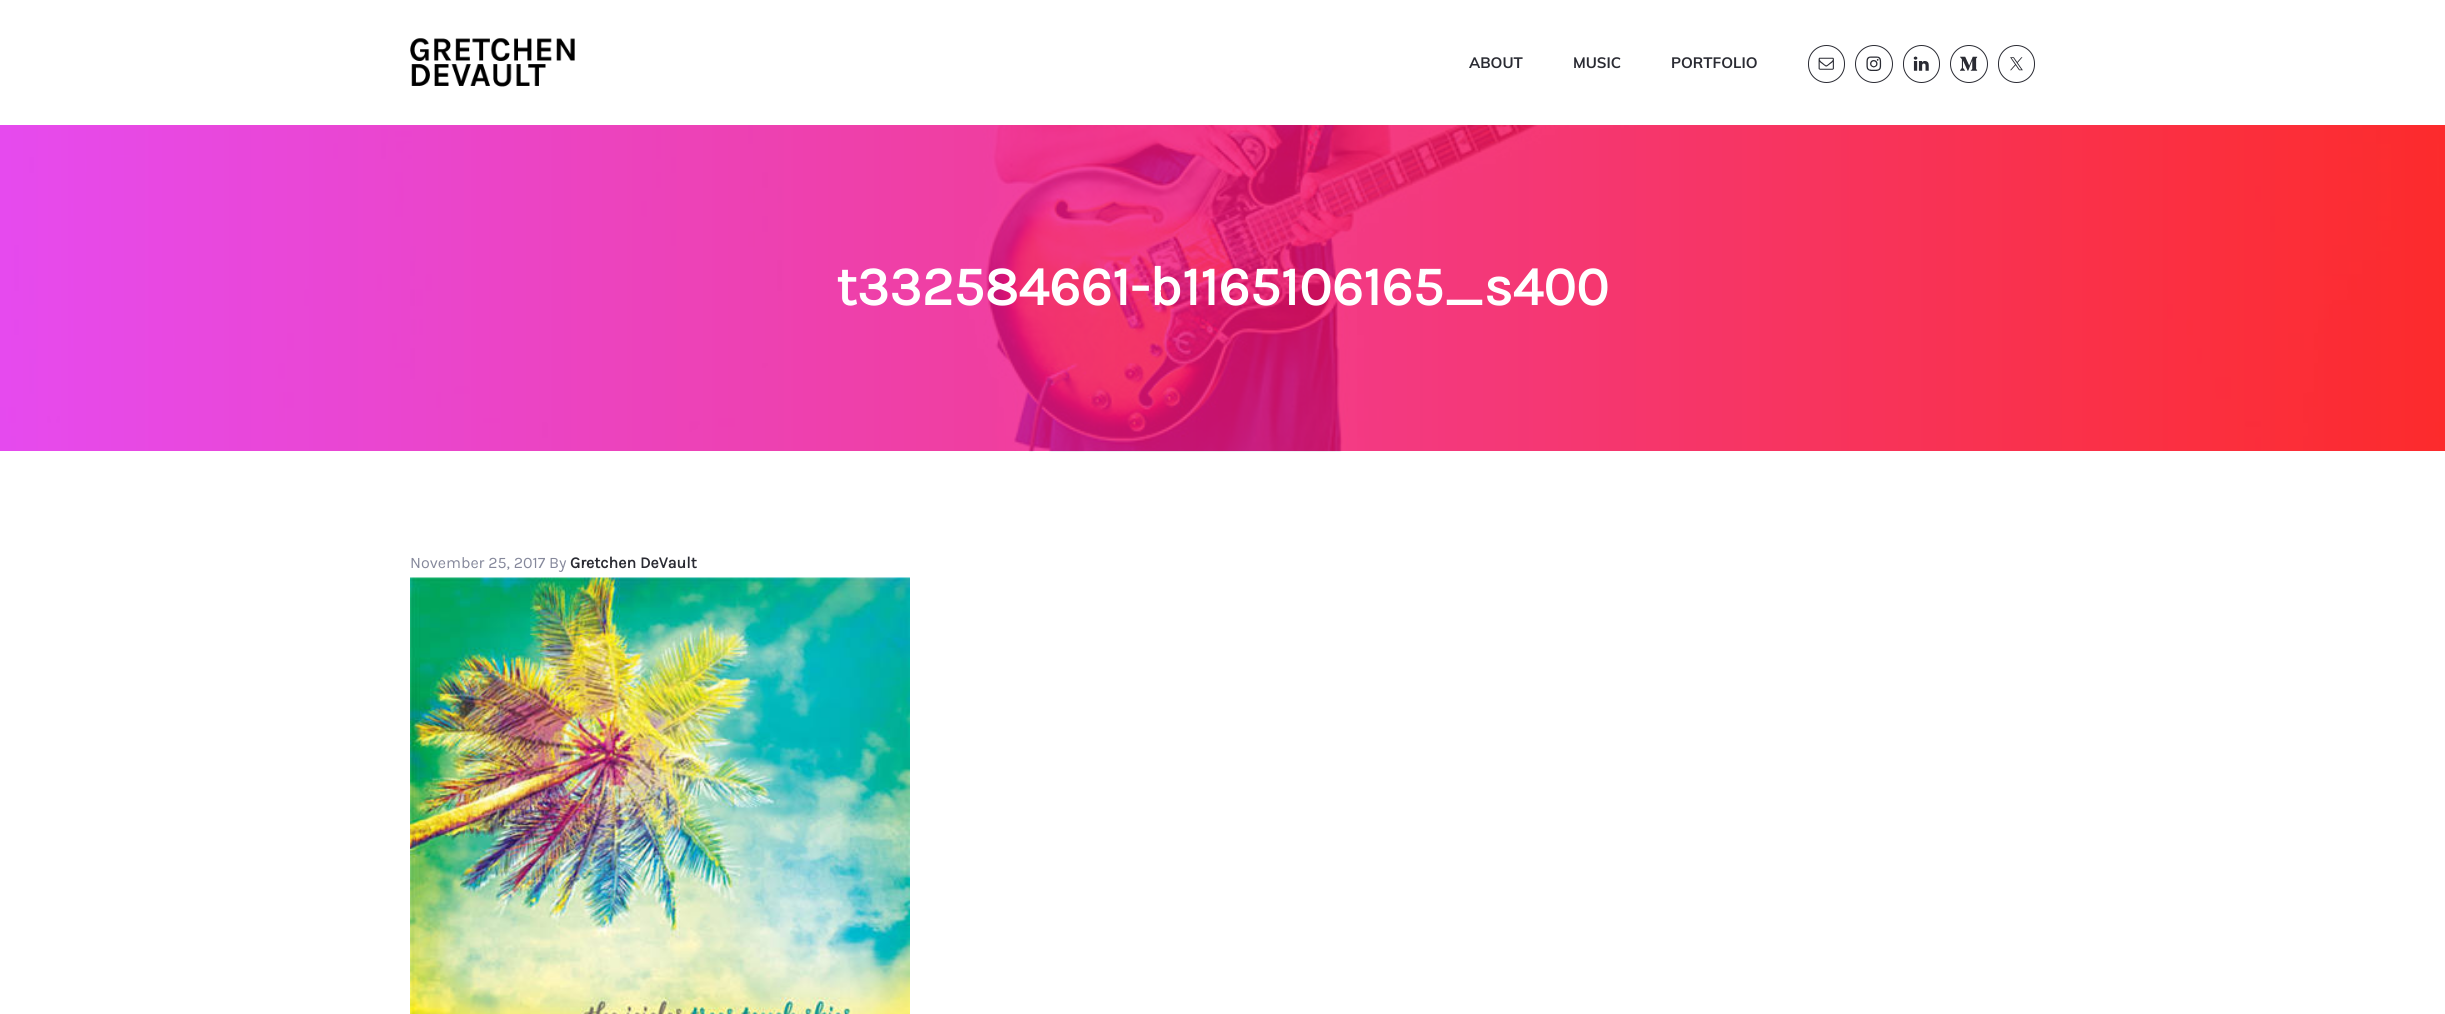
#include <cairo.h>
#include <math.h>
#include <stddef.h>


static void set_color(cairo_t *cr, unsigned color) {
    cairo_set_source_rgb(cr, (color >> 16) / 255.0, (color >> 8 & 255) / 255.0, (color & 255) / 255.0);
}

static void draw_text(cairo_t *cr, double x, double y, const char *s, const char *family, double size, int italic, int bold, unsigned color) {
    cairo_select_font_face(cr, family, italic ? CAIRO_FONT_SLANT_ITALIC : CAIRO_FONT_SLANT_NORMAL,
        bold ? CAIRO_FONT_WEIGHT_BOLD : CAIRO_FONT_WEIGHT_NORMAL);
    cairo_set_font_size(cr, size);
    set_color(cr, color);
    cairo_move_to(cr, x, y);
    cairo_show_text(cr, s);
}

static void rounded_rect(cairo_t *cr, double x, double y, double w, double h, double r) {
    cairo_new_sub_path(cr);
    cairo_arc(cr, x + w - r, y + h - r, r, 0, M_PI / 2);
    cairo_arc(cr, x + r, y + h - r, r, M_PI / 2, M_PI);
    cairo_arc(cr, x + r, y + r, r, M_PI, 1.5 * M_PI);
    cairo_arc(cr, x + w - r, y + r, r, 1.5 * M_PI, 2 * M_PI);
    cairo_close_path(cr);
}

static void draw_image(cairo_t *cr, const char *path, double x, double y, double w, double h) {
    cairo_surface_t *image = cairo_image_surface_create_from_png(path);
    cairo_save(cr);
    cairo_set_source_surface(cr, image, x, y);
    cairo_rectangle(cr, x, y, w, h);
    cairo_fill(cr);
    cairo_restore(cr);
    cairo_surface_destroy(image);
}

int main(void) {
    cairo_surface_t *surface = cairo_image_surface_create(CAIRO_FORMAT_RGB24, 2445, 1014);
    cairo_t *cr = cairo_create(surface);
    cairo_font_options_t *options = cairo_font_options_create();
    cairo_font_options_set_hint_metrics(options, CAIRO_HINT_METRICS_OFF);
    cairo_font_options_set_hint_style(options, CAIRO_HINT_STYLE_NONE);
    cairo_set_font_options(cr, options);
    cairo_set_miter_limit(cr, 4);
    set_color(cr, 0xFFFFFF);
    cairo_paint(cr);
    draw_image(cr, "assets/img1.png", 410, 38, 165, 49);
    draw_text(cr, 1469, 68, "ABOUT", "Muli", 15, 0, 1, 0x2A2B33);
    draw_text(cr, 1573, 68, "MUSIC", "Muli", 15, 0, 1, 0x2A2B33);
    draw_text(cr, 1671, 68, "PORTFOLIO", "Muli", 15, 0, 1, 0x2A2B33);
    rounded_rect(cr, 1808.5, 45.5, 36, 37, 18);
    cairo_set_line_width(cr, 1);
    cairo_stroke(cr);
    draw_image(cr, "assets/img2.png", 1818, 57, 16, 13);
    cairo_arc(cr, 1874, 64, 18.5, 0, 2 * M_PI);
    cairo_stroke(cr);
    draw_image(cr, "assets/img3.png", 1866, 56, 16, 15);
    rounded_rect(cr, 1903.5, 45.5, 36, 37, 18);
    cairo_stroke(cr);
    draw_image(cr, "assets/img4.png", 1913, 56, 16, 15);
    cairo_arc(cr, 1969, 64, 18.5, 0, 2 * M_PI);
    cairo_stroke(cr);
    draw_image(cr, "assets/img5.png", 1960, 56, 18, 15);
    rounded_rect(cr, 1998.5, 45.5, 36, 37, 18);
    cairo_stroke(cr);
    draw_image(cr, "assets/img6.png", 2010, 57, 13, 14);
    draw_image(cr, "assets/img7.png", 0, 125, 2445, 327);
    draw_text(cr, 836, 305, "t332584661-b1165106165_s400", "Karla", 55, 0, 1, 0xFFFFFF);
    draw_text(cr, 410, 568, "November 25, 2017 By", "Karla", 16, 0, 0, 0x85889B);
    draw_text(cr, 570, 568, "Gretchen DeVault", "Karla", 16, 0, 1, 0x2A2B33);
    draw_image(cr, "assets/img8.png", 410, 577, 500, 437);
    cairo_surface_write_to_png(surface, "output.png");
    cairo_font_options_destroy(options);
    cairo_destroy(cr);
    cairo_surface_destroy(surface);
    return 0;
}
